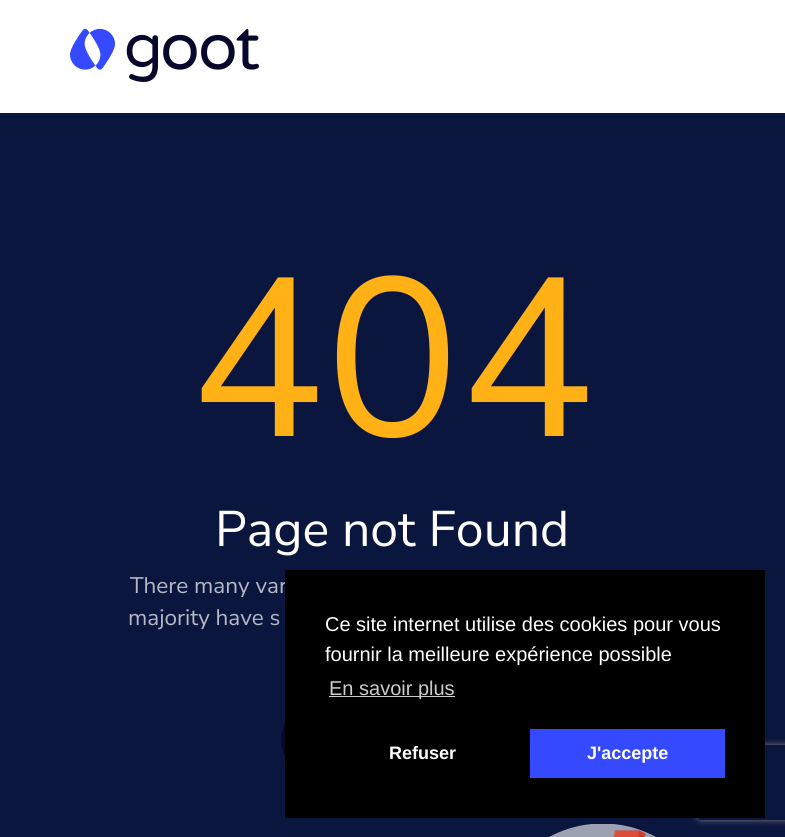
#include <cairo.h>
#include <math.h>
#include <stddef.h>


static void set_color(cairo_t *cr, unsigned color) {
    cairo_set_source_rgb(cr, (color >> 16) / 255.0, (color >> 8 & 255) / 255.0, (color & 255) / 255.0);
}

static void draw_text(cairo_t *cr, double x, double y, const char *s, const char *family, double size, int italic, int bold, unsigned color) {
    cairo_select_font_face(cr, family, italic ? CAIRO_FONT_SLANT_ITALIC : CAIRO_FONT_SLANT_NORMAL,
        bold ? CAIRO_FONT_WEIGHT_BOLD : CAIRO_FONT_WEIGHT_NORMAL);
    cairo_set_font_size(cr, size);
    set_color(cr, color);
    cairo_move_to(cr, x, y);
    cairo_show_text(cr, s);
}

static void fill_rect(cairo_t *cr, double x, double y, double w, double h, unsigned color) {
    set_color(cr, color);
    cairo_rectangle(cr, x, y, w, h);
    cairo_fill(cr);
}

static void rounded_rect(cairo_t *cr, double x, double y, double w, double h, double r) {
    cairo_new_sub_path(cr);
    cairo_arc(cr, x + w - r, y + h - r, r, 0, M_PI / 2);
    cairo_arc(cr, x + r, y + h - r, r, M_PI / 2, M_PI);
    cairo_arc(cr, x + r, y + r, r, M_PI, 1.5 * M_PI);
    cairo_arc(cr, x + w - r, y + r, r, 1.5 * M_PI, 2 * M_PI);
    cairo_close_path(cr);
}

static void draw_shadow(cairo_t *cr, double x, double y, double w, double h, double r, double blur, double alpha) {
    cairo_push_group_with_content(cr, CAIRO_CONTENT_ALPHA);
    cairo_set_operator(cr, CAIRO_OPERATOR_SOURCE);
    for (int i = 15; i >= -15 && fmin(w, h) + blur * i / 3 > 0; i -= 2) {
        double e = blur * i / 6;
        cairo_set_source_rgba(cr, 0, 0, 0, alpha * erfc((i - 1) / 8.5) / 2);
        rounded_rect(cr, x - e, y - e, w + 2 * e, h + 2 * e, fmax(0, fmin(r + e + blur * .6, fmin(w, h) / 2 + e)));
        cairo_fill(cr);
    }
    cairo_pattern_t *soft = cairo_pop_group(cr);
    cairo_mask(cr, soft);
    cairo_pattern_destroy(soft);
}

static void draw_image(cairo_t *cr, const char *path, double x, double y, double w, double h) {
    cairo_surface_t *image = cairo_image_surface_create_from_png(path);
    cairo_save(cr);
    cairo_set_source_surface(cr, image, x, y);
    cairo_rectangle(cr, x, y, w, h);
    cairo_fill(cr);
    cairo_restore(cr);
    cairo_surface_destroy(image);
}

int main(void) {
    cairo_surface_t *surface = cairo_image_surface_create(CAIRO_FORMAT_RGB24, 785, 837);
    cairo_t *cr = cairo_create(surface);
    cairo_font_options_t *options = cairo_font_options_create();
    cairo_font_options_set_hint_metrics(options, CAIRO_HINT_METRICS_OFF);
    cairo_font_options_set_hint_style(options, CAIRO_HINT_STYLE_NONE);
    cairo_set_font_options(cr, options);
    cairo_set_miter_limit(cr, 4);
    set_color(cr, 0xFFFFFF);
    cairo_paint(cr);
    draw_image(cr, "assets/img1.png", 70, 29, 189, 53);
    fill_rect(cr, 0, 113, 785, 724, 0x0B163F);
    draw_text(cr, 190, 436, "404", "Nunito Sans", 225, 0, 0, 0xFFB116);
    draw_text(cr, 215, 546, "Page not Found", "Nunito Sans", 50, 0, 0, 0xFFFFFF);
    draw_text(cr, 130, 593, "There many var", "Nunito Sans", 22.5, 0, 0, 0xB6B9C5);
    draw_text(cr, 128, 625, "majority have s", "Nunito Sans", 22.5, 0, 0, 0xB6B9C5);
    set_color(cr, 0x08082D);
    rounded_rect(cr, 282.5, 707.5, 220, 65, 32.5);
    cairo_fill_preserve(cr);
    cairo_set_line_width(cr, 3);
    cairo_stroke(cr);
    cairo_save(cr);
    cairo_rectangle(cr, 490, 824, 225, 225);
    cairo_clip(cr);
    set_color(cr, 0x9DA2B2);
    cairo_arc(cr, 602.5, 936, 112.5, 0, 2 * M_PI);
    cairo_fill(cr);
    cairo_restore(cr);
    draw_image(cr, "assets/img2.png", 613, 829, 34, 8);
    cairo_save(cr);
    cairo_set_fill_rule(cr, CAIRO_FILL_RULE_EVEN_ODD);
    cairo_new_path(cr);
    cairo_move_to(cr, 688, 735);
    cairo_line_to(cr, 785, 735);
    cairo_line_to(cr, 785, 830);
    cairo_line_to(cr, 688, 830);
    cairo_close_path(cr);
    cairo_move_to(cr, 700.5, 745);
    cairo_line_to(cr, 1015.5, 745);
    cairo_curve_to(cr, 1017, 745, 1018, 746, 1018, 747.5);
    cairo_line_to(cr, 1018, 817.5);
    cairo_curve_to(cr, 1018, 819, 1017, 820, 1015.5, 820);
    cairo_line_to(cr, 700.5, 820);
    cairo_curve_to(cr, 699, 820, 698, 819, 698, 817.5);
    cairo_line_to(cr, 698, 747.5);
    cairo_curve_to(cr, 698, 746, 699, 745, 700.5, 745);
    cairo_close_path(cr);
    cairo_clip(cr);
    set_color(cr, 0x808080);
    draw_shadow(cr, 698, 745, 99, 75, 2.5, 3, 1);
    cairo_restore(cr);
    fill_rect(cr, 285, 570, 480, 248, 0x000000);
    draw_text(cr, 325, 631, "Ce site internet utilise des cookies pour vous", "Liberation Sans", 20, 0, 0, 0xFFFFFF);
    draw_text(cr, 325, 661, "fournir la meilleure expérience possible", "Liberation Sans", 20, 0, 0, 0xFFFFFF);
    fill_rect(cr, 329, 696, 126, 1, 0xCCCCCC);
    draw_text(cr, 329, 695, "En savoir plus", "Liberation Sans", 20, 0, 0, 0xCCCCCC);
    draw_text(cr, 389, 759, "Refuser", "Liberation Sans", 18, 0, 1, 0xFFFFFF);
    fill_rect(cr, 530, 729, 195, 49, 0x3549FF);
    draw_text(cr, 587, 759, "J'accepte", "Liberation Sans", 18, 0, 1, 0xFFFFFF);
    cairo_surface_write_to_png(surface, "output.png");
    cairo_font_options_destroy(options);
    cairo_destroy(cr);
    cairo_surface_destroy(surface);
    return 0;
}
